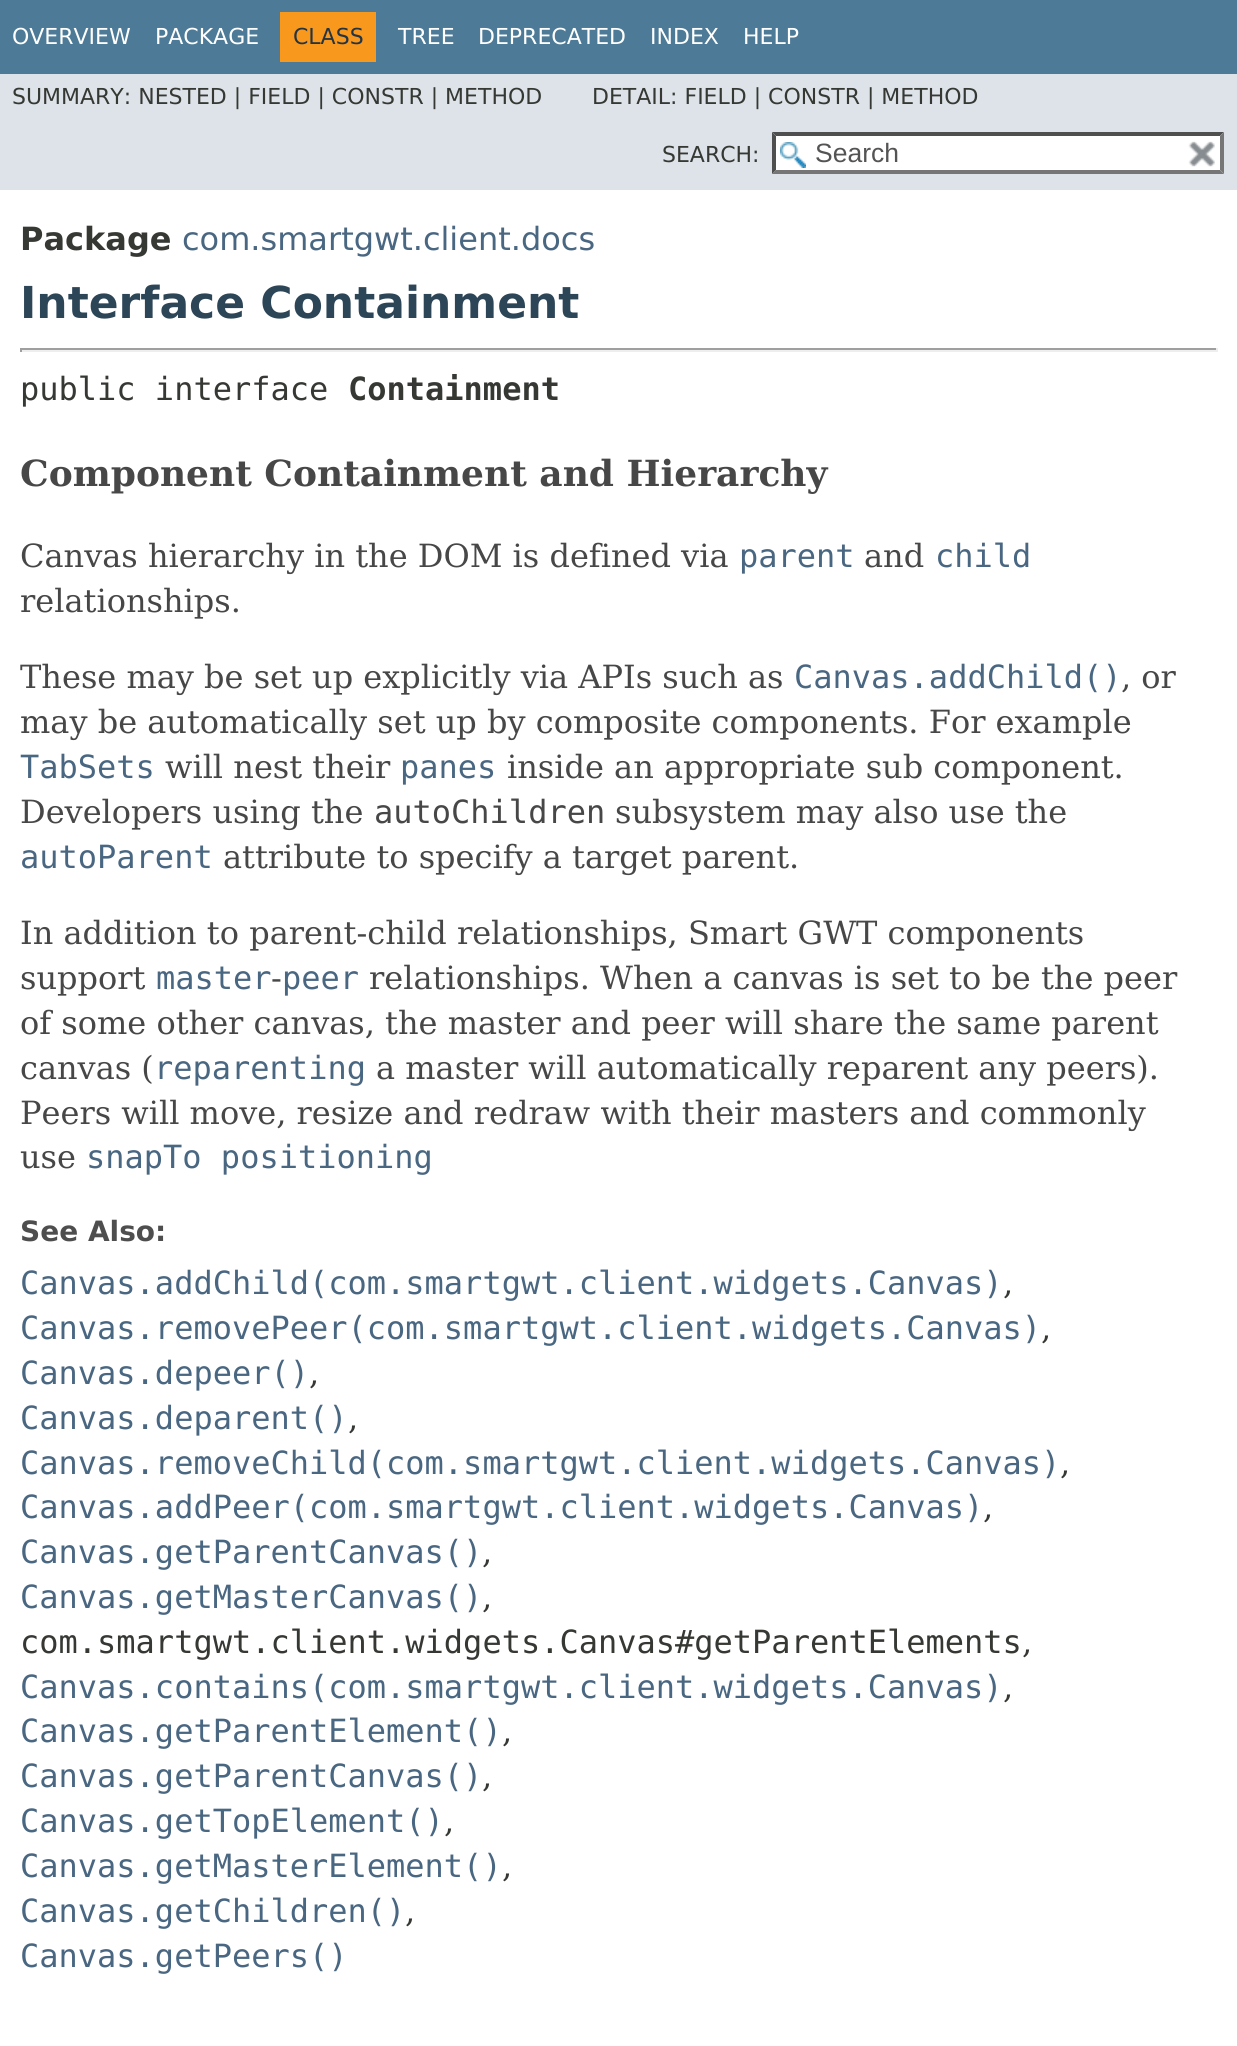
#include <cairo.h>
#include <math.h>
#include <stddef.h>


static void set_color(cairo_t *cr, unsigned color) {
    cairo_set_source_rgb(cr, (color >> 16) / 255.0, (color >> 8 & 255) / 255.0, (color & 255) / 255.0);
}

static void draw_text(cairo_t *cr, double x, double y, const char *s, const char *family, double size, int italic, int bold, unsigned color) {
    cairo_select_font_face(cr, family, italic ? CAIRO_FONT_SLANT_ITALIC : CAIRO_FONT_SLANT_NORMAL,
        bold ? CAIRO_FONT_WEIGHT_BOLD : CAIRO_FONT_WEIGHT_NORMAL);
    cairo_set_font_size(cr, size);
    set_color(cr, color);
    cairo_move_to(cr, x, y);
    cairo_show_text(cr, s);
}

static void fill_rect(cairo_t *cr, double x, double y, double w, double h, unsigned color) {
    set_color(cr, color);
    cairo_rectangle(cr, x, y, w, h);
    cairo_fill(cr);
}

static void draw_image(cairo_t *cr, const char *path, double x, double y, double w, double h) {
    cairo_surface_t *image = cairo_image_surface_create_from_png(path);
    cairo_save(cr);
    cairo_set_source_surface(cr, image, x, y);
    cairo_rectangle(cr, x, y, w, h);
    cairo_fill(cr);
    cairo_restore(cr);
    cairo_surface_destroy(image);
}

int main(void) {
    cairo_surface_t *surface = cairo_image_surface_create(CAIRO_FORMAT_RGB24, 1237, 2046);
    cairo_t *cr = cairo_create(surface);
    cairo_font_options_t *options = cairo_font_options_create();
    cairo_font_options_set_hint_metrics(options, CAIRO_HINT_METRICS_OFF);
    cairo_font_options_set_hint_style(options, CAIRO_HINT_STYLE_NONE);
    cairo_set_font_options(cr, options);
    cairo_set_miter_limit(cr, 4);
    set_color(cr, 0xFFFFFF);
    cairo_paint(cr);
    fill_rect(cr, 0, 0, 1237, 74, 0x4D7A97);
    draw_text(cr, 12, 44, "OVERVIEW", "DejaVu Sans", 22, 0, 0, 0xFFFFFF);
    draw_text(cr, 155, 44, "PACKAGE", "DejaVu Sans", 22, 0, 0, 0xFFFFFF);
    fill_rect(cr, 280, 12, 96, 50, 0xF8981D);
    draw_text(cr, 293, 44, "CLASS", "DejaVu Sans", 22, 0, 0, 0x253441);
    draw_text(cr, 398, 44, "TREE", "DejaVu Sans", 22, 0, 0, 0xFFFFFF);
    draw_text(cr, 478, 44, "DEPRECATED", "DejaVu Sans", 22, 0, 0, 0xFFFFFF);
    draw_text(cr, 650, 44, "INDEX", "DejaVu Sans", 22, 0, 0, 0xFFFFFF);
    draw_text(cr, 743, 44, "HELP", "DejaVu Sans", 22, 0, 0, 0xFFFFFF);
    fill_rect(cr, 0, 74, 1237, 116, 0xDEE3E9);
    draw_text(cr, 12, 104, "SUMMARY: NESTED | FIELD | CONSTR | METHOD", "DejaVu Sans", 22, 0, 0, 0x353833);
    draw_text(cr, 592, 104, "DETAIL: FIELD | CONSTR | METHOD", "DejaVu Sans", 22, 0, 0, 0x353833);
    draw_text(cr, 662, 162, "SEARCH:", "DejaVu Sans", 22, 0, 0, 0x353833);
    fill_rect(cr, 772, 132, 452, 42, 0xFFFFFF);
    draw_image(cr, "assets/img1.png", 780, 142, 26, 26);
    set_color(cr, 0x4F4F4F);
    cairo_new_path(cr);
    cairo_move_to(cr, 772, 132);
    cairo_line_to(cr, 1224, 132);
    cairo_line_to(cr, 1220, 136);
    cairo_line_to(cr, 776, 136);
    cairo_close_path(cr);
    cairo_fill(cr);
    set_color(cr, 0x767676);
    cairo_new_path(cr);
    cairo_move_to(cr, 1224, 132);
    cairo_line_to(cr, 1224, 174);
    cairo_line_to(cr, 1220, 170);
    cairo_line_to(cr, 1220, 136);
    cairo_close_path(cr);
    cairo_fill(cr);
    cairo_new_path(cr);
    cairo_move_to(cr, 1224, 174);
    cairo_line_to(cr, 772, 174);
    cairo_line_to(cr, 776, 170);
    cairo_line_to(cr, 1220, 170);
    cairo_close_path(cr);
    cairo_fill(cr);
    set_color(cr, 0x4F4F4F);
    cairo_new_path(cr);
    cairo_move_to(cr, 772, 174);
    cairo_line_to(cr, 772, 132);
    cairo_line_to(cr, 776, 136);
    cairo_line_to(cr, 776, 170);
    cairo_close_path(cr);
    cairo_fill(cr);
    draw_text(cr, 815, 162, "Search", "Liberation Sans", 26.5, 0, 0, 0x545454);
    draw_image(cr, "assets/img2.png", 1188, 141, 27, 26);
    draw_text(cr, 20, 250, "Package", "DejaVu Sans", 32, 0, 1, 0x353833);
    draw_text(cr, 182, 250, "com.smartgwt.client.docs", "DejaVu Sans", 32, 0, 0, 0x4A6782);
    draw_text(cr, 20, 318, "Interface Containment", "DejaVu Sans", 44, 0, 1, 0x2C4557);
    fill_rect(cr, 20, 348, 1198, 2, 0x9F9F9F);
    fill_rect(cr, 1216, 348, 2, 4, 0xEEEEEE);
    fill_rect(cr, 20, 350, 1198, 2, 0xEEEEEE);
    fill_rect(cr, 20, 348, 2, 4, 0x9F9F9F);
    draw_text(cr, 20, 400, "public interface", "DejaVu Sans Mono", 32, 0, 0, 0x353833);
    draw_text(cr, 348, 400, "Containment", "DejaVu Sans Mono", 32, 0, 1, 0x353833);
    draw_text(cr, 20, 486, "Component Containment and Hierarchy", "DejaVu Serif", 36, 0, 1, 0x474747);
    draw_text(cr, 20, 567, "Canvas hierarchy in the DOM is defined via", "DejaVu Serif", 32, 0, 0, 0x474747);
    draw_text(cr, 739, 567, "parent", "DejaVu Sans Mono", 32, 0, 0, 0x4A6782);
    draw_text(cr, 864, 567, "and", "DejaVu Serif", 32, 0, 0, 0x474747);
    draw_text(cr, 935, 567, "child", "DejaVu Sans Mono", 32, 0, 0, 0x4A6782);
    draw_text(cr, 20, 612, "relationships.", "DejaVu Serif", 32, 0, 0, 0x474747);
    draw_text(cr, 20, 688, "These may be set up explicitly via APIs such as", "DejaVu Serif", 32, 0, 0, 0x474747);
    draw_text(cr, 794, 688, "Canvas.addChild()", "DejaVu Sans Mono", 32, 0, 0, 0x4A6782);
    draw_text(cr, 1121, 688, ", or", "DejaVu Serif", 32, 0, 0, 0x474747);
    draw_text(cr, 20, 733, "may be automatically set up by composite components. For example", "DejaVu Serif", 32, 0, 0, 0x474747);
    draw_text(cr, 20, 778, "TabSets", "DejaVu Sans Mono", 32, 0, 0, 0x4A6782);
    draw_text(cr, 165, 778, "will nest their", "DejaVu Serif", 32, 0, 0, 0x474747);
    draw_text(cr, 400, 778, "panes", "DejaVu Sans Mono", 32, 0, 0, 0x4A6782);
    draw_text(cr, 507, 778, "inside an appropriate sub component.", "DejaVu Serif", 32, 0, 0, 0x474747);
    draw_text(cr, 20, 823, "Developers using the", "DejaVu Serif", 32, 0, 0, 0x474747);
    draw_text(cr, 374, 823, "autoChildren", "DejaVu Sans Mono", 32, 0, 0, 0x474747);
    draw_text(cr, 615, 823, "subsystem may also use the", "DejaVu Serif", 32, 0, 0, 0x474747);
    draw_text(cr, 20, 868, "autoParent", "DejaVu Sans Mono", 32, 0, 0, 0x4A6782);
    draw_text(cr, 223, 868, "attribute to specify a target parent.", "DejaVu Serif", 32, 0, 0, 0x474747);
    draw_text(cr, 20, 944, "In addition to parent-child relationships, Smart GWT components", "DejaVu Serif", 32, 0, 0, 0x474747);
    draw_text(cr, 20, 989, "support", "DejaVu Serif", 32, 0, 0, 0x474747);
    draw_text(cr, 156, 989, "master", "DejaVu Sans Mono", 32, 0, 0, 0x4A6782);
    draw_text(cr, 271, 989, "-", "DejaVu Serif", 32, 0, 0, 0x474747);
    draw_text(cr, 282, 989, "peer", "DejaVu Sans Mono", 32, 0, 0, 0x4A6782);
    draw_text(cr, 369, 989, "relationships. When a canvas is set to be the peer", "DejaVu Serif", 32, 0, 0, 0x474747);
    draw_text(cr, 20, 1034, "of some other canvas, the master and peer will share the same parent", "DejaVu Serif", 32, 0, 0, 0x474747);
    draw_text(cr, 20, 1079, "canvas (", "DejaVu Serif", 32, 0, 0, 0x474747);
    draw_text(cr, 154, 1079, "reparenting", "DejaVu Sans Mono", 32, 0, 0, 0x4A6782);
    draw_text(cr, 376, 1079, "a master will automatically reparent any peers).", "DejaVu Serif", 32, 0, 0, 0x474747);
    draw_text(cr, 20, 1124, "Peers will move, resize and redraw with their masters and commonly", "DejaVu Serif", 32, 0, 0, 0x474747);
    draw_text(cr, 20, 1168, "use", "DejaVu Serif", 32, 0, 0, 0x474747);
    draw_text(cr, 86, 1168, "snapTo positioning", "DejaVu Sans Mono", 32, 0, 0, 0x4A6782);
    draw_text(cr, 20, 1241, "See Also:", "DejaVu Sans", 28, 0, 1, 0x4E4E4E);
    draw_text(cr, 20, 1294, "Canvas.addChild(com.smartgwt.client.widgets.Canvas)", "DejaVu Sans Mono", 32, 0, 0, 0x4A6782);
    draw_text(cr, 1003, 1294, ",", "DejaVu Serif", 32, 0, 0, 0x353833);
    draw_text(cr, 20, 1339, "Canvas.removePeer(com.smartgwt.client.widgets.Canvas)", "DejaVu Sans Mono", 32, 0, 0, 0x4A6782);
    draw_text(cr, 1041, 1339, ",", "DejaVu Serif", 32, 0, 0, 0x353833);
    draw_text(cr, 20, 1384, "Canvas.depeer()", "DejaVu Sans Mono", 32, 0, 0, 0x4A6782);
    draw_text(cr, 309, 1384, ",", "DejaVu Serif", 32, 0, 0, 0x353833);
    draw_text(cr, 20, 1429, "Canvas.deparent()", "DejaVu Sans Mono", 32, 0, 0, 0x4A6782);
    draw_text(cr, 348, 1429, ",", "DejaVu Serif", 32, 0, 0, 0x353833);
    draw_text(cr, 20, 1474, "Canvas.removeChild(com.smartgwt.client.widgets.Canvas)", "DejaVu Sans Mono", 32, 0, 0, 0x4A6782);
    draw_text(cr, 1060, 1474, ",", "DejaVu Serif", 32, 0, 0, 0x353833);
    draw_text(cr, 20, 1518, "Canvas.addPeer(com.smartgwt.client.widgets.Canvas)", "DejaVu Sans Mono", 32, 0, 0, 0x4A6782);
    draw_text(cr, 983, 1518, ",", "DejaVu Serif", 32, 0, 0, 0x353833);
    draw_text(cr, 20, 1563, "Canvas.getParentCanvas()", "DejaVu Sans Mono", 32, 0, 0, 0x4A6782);
    draw_text(cr, 482, 1563, ",", "DejaVu Serif", 32, 0, 0, 0x353833);
    draw_text(cr, 20, 1608, "Canvas.getMasterCanvas()", "DejaVu Sans Mono", 32, 0, 0, 0x4A6782);
    draw_text(cr, 482, 1608, ",", "DejaVu Serif", 32, 0, 0, 0x353833);
    draw_text(cr, 20, 1653, "com.smartgwt.client.widgets.Canvas#getParentElements", "DejaVu Sans Mono", 32, 0, 0, 0x353833);
    draw_text(cr, 1022, 1653, ",", "DejaVu Serif", 32, 0, 0, 0x353833);
    draw_text(cr, 20, 1698, "Canvas.contains(com.smartgwt.client.widgets.Canvas)", "DejaVu Sans Mono", 32, 0, 0, 0x4A6782);
    draw_text(cr, 1003, 1698, ",", "DejaVu Serif", 32, 0, 0, 0x353833);
    draw_text(cr, 20, 1742, "Canvas.getParentElement()", "DejaVu Sans Mono", 32, 0, 0, 0x4A6782);
    draw_text(cr, 502, 1742, ",", "DejaVu Serif", 32, 0, 0, 0x353833);
    draw_text(cr, 20, 1787, "Canvas.getParentCanvas()", "DejaVu Sans Mono", 32, 0, 0, 0x4A6782);
    draw_text(cr, 482, 1787, ",", "DejaVu Serif", 32, 0, 0, 0x353833);
    draw_text(cr, 20, 1832, "Canvas.getTopElement()", "DejaVu Sans Mono", 32, 0, 0, 0x4A6782);
    draw_text(cr, 444, 1832, ",", "DejaVu Serif", 32, 0, 0, 0x353833);
    draw_text(cr, 20, 1877, "Canvas.getMasterElement()", "DejaVu Sans Mono", 32, 0, 0, 0x4A6782);
    draw_text(cr, 502, 1877, ",", "DejaVu Serif", 32, 0, 0, 0x353833);
    draw_text(cr, 20, 1922, "Canvas.getChildren()", "DejaVu Sans Mono", 32, 0, 0, 0x4A6782);
    draw_text(cr, 405, 1922, ",", "DejaVu Serif", 32, 0, 0, 0x353833);
    draw_text(cr, 20, 1967, "Canvas.getPeers()", "DejaVu Sans Mono", 32, 0, 0, 0x4A6782);
    cairo_surface_write_to_png(surface, "output.png");
    cairo_font_options_destroy(options);
    cairo_destroy(cr);
    cairo_surface_destroy(surface);
    return 0;
}
